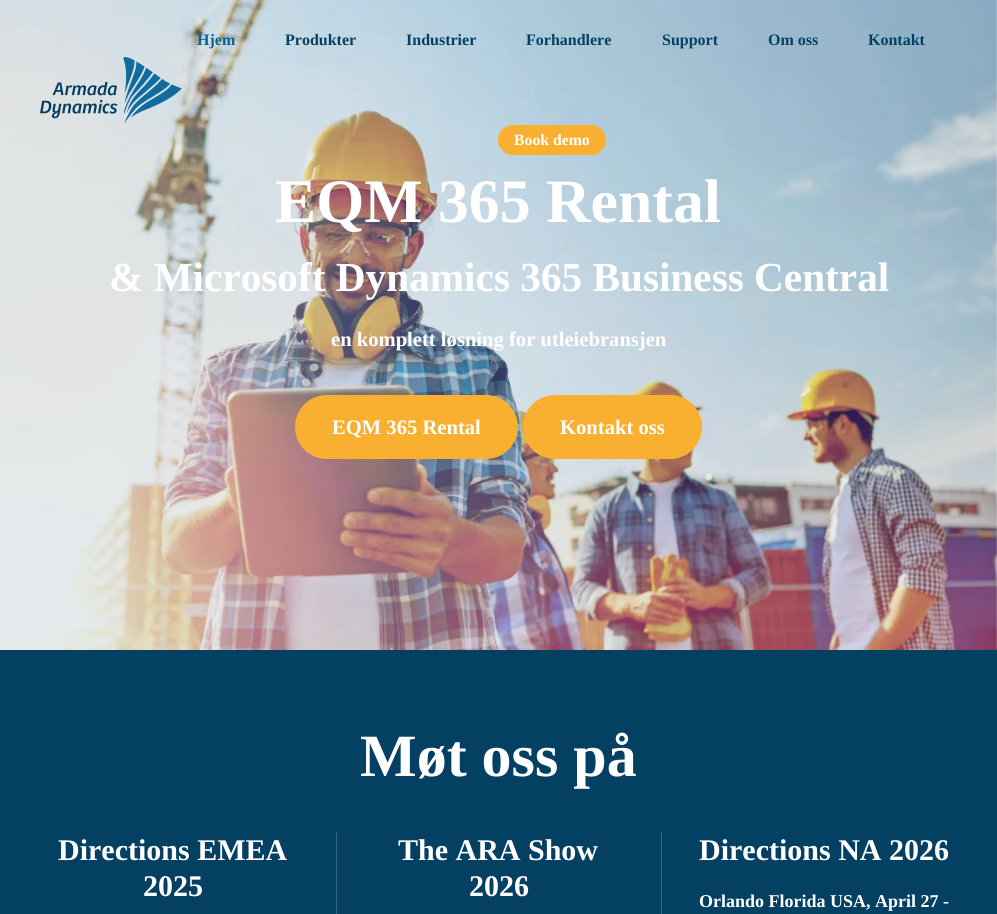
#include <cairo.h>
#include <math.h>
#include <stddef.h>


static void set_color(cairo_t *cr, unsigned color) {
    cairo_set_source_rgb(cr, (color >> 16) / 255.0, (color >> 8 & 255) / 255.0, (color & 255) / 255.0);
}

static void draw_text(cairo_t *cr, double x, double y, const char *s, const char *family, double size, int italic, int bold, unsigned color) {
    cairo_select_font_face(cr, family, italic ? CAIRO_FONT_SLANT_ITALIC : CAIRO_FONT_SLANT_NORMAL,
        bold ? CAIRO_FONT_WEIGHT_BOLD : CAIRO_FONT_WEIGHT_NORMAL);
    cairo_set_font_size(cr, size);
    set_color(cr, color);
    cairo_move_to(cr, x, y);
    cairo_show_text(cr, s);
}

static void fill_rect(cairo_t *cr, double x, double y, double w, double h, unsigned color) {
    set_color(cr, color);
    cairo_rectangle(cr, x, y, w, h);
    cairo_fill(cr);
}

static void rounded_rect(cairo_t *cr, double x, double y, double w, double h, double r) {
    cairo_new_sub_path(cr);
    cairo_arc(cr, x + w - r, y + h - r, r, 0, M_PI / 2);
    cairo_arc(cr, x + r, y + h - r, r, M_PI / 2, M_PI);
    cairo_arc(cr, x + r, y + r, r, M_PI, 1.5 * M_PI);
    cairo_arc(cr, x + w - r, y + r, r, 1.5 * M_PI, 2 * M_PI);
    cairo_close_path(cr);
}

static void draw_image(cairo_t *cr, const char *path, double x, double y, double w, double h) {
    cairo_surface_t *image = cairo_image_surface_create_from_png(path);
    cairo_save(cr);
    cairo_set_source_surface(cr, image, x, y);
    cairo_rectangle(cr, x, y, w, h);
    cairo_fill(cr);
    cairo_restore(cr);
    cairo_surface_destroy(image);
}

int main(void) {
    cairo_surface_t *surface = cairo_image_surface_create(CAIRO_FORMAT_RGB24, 997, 914);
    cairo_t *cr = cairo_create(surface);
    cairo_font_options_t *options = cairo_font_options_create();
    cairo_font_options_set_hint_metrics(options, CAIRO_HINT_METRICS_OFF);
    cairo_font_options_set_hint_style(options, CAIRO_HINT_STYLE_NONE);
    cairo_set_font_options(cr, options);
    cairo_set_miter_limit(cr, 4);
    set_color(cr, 0xFFFFFF);
    cairo_paint(cr);
    draw_image(cr, "assets/img2.png", 0, 0, 997, 650);
    draw_image(cr, "assets/img1.png", 40, 57, 142, 66);
    draw_text(cr, 197, 45, "Hjem", "Liberation Serif", 16, 0, 1, 0x00659A);
    draw_text(cr, 285, 45, "Produkter", "Liberation Serif", 16, 0, 1, 0x044062);
    draw_text(cr, 406, 45, "Industrier", "Liberation Serif", 16, 0, 1, 0x044062);
    draw_text(cr, 526, 45, "Forhandlere", "Liberation Serif", 16, 0, 1, 0x044062);
    draw_text(cr, 662, 45, "Support", "Liberation Serif", 16, 0, 1, 0x044062);
    draw_text(cr, 768, 45, "Om oss", "Liberation Serif", 16, 0, 1, 0x044062);
    draw_text(cr, 868, 45, "Kontakt", "Liberation Serif", 16, 0, 1, 0x044062);
    set_color(cr, 0xF9B030);
    rounded_rect(cr, 498, 125, 108, 30, 15);
    cairo_fill(cr);
    draw_text(cr, 514, 145, "Book demo", "Liberation Serif", 15.75, 0, 1, 0xFFFFFF);
    draw_text(cr, 275, 222, "EQM 365 Rental", "Liberation Serif", 61.75, 0, 1, 0xFFFFFF);
    draw_text(cr, 109, 291, "& Microsoft Dynamics 365 Business Central", "Liberation Serif", 41.25, 0, 1, 0xFFFFFF);
    draw_text(cr, 331, 346, "en komplett løsning for utleiebransjen", "Liberation Serif", 20.6, 0, 1, 0xFFFFFF);
    set_color(cr, 0xF9B030);
    rounded_rect(cr, 295, 395, 223, 64, 32);
    cairo_fill(cr);
    draw_text(cr, 332, 434, "EQM 365 Rental", "Liberation Serif", 20.6, 0, 1, 0xFFFFFF);
    set_color(cr, 0xF9B030);
    rounded_rect(cr, 523, 395, 179, 64, 32);
    cairo_fill(cr);
    draw_text(cr, 560, 434, "Kontakt oss", "Liberation Serif", 20.6, 0, 1, 0xFFFFFF);
    fill_rect(cr, 0, 650, 997, 264, 0x044062);
    draw_text(cr, 360, 776, "Møt oss på", "Liberation Serif", 60, 0, 1, 0xFFFFFF);
    draw_text(cr, 58, 860, "Directions EMEA", "Liberation Serif", 30, 0, 1, 0xFFFFFF);
    draw_text(cr, 143, 896, "2025", "Liberation Serif", 30, 0, 1, 0xFFFFFF);
    fill_rect(cr, 336, 832, 1, 82, 0x366681);
    draw_text(cr, 398, 860, "The ARA Show", "Liberation Serif", 30, 0, 1, 0xFFFFFF);
    draw_text(cr, 469, 896, "2026", "Liberation Serif", 30, 0, 1, 0xFFFFFF);
    fill_rect(cr, 661, 832, 1, 82, 0x366681);
    draw_text(cr, 699, 860, "Directions NA 2026", "Liberation Serif", 30, 0, 1, 0xFFFFFF);
    draw_text(cr, 699, 907, "Orlando Florida USA, April 27 -", "Liberation Serif", 18, 0, 1, 0xFFFFFF);
    cairo_surface_write_to_png(surface, "output.png");
    cairo_font_options_destroy(options);
    cairo_destroy(cr);
    cairo_surface_destroy(surface);
    return 0;
}
